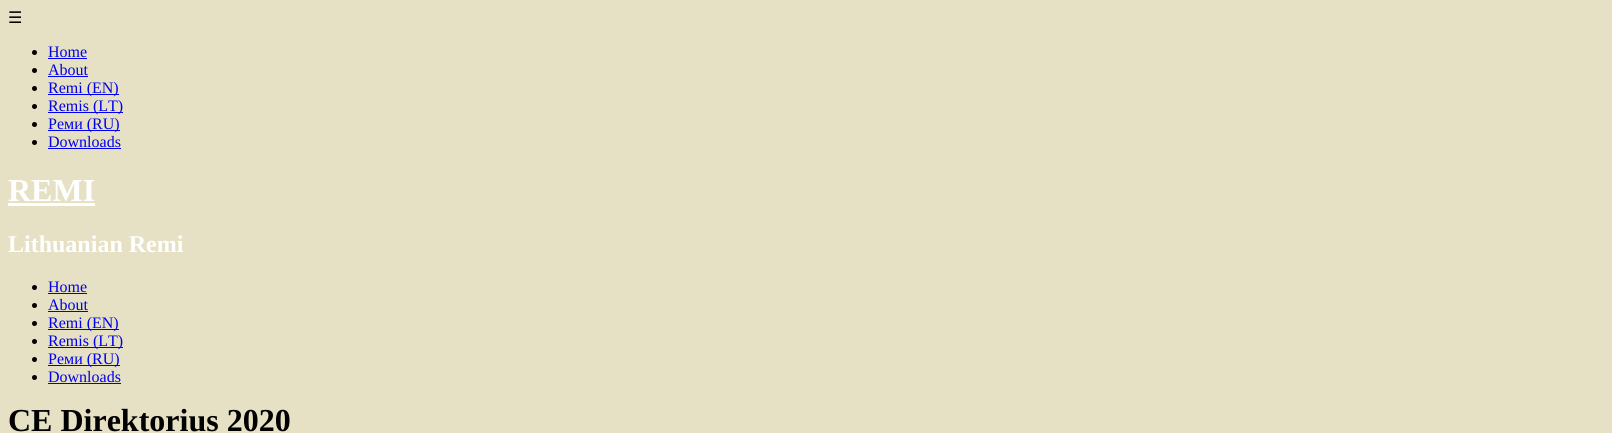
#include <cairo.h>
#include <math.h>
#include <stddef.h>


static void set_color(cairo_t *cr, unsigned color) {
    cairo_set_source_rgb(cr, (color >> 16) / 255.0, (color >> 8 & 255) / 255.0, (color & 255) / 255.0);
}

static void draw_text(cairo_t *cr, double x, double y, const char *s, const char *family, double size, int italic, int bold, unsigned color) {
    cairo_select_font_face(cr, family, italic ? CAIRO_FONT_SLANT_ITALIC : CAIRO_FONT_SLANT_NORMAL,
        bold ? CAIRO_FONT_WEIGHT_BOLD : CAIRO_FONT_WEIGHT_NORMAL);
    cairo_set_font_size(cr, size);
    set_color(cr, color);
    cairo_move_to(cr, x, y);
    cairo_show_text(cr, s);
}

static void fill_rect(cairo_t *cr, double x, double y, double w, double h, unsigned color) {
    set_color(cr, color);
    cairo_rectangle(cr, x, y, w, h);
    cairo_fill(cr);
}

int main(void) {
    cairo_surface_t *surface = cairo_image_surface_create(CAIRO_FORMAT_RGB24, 1612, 433);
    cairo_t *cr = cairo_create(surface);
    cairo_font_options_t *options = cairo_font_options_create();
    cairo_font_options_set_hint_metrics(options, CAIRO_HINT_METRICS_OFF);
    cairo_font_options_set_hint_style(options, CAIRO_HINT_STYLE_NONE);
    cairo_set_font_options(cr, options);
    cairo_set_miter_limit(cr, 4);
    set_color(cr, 0xE6E1C4);
    cairo_paint(cr);
    draw_text(cr, 8, 23, "☰", "DejaVu Sans", 16, 0, 0, 0x000000);
    cairo_new_path(cr);
    cairo_arc(cr, 34.5, 52.5, 2.5, 0, 2 * M_PI);
    cairo_fill(cr);
    draw_text(cr, 48, 57, "Home", "Liberation Serif", 16, 0, 0, 0x0000EE);
    fill_rect(cr, 48, 58, 39, 1, 0x0000EE);
    set_color(cr, 0x000000);
    cairo_new_path(cr);
    cairo_arc(cr, 34.5, 70.5, 2.5, 0, 2 * M_PI);
    cairo_fill(cr);
    draw_text(cr, 48, 75, "About", "Liberation Serif", 16, 0, 0, 0x0000EE);
    fill_rect(cr, 48, 76, 40, 1, 0x0000EE);
    set_color(cr, 0x000000);
    cairo_new_path(cr);
    cairo_arc(cr, 34.5, 88.5, 2.5, 0, 2 * M_PI);
    cairo_fill(cr);
    fill_rect(cr, 48, 94, 71, 1, 0x0000EE);
    draw_text(cr, 48, 93, "Remi (EN)", "Liberation Serif", 16, 0, 0, 0x0000EE);
    set_color(cr, 0x000000);
    cairo_new_path(cr);
    cairo_arc(cr, 34.5, 106.5, 2.5, 0, 2 * M_PI);
    cairo_fill(cr);
    fill_rect(cr, 48, 112, 75, 1, 0x0000EE);
    draw_text(cr, 48, 111, "Remis (LT)", "Liberation Serif", 16, 0, 0, 0x0000EE);
    set_color(cr, 0x000000);
    cairo_new_path(cr);
    cairo_arc(cr, 34.5, 124.5, 2.5, 0, 2 * M_PI);
    cairo_fill(cr);
    fill_rect(cr, 48, 130, 72, 1, 0x0000EE);
    draw_text(cr, 48, 129, "Реми (RU)", "Liberation Serif", 16, 0, 0, 0x0000EE);
    set_color(cr, 0x000000);
    cairo_new_path(cr);
    cairo_arc(cr, 34.5, 142.5, 2.5, 0, 2 * M_PI);
    cairo_fill(cr);
    draw_text(cr, 48, 147, "Downloads", "Liberation Serif", 16, 0, 0, 0x0000EE);
    fill_rect(cr, 48, 148, 73, 1, 0x0000EE);
    draw_text(cr, 8, 201, "REMI", "Liberation Serif", 32, 0, 1, 0xFFFFFF);
    fill_rect(cr, 8, 203, 87, 3, 0xFFFFFF);
    draw_text(cr, 8, 252, "Lithuanian Remi", "Liberation Serif", 24, 0, 1, 0xFFFFFF);
    set_color(cr, 0x000000);
    cairo_new_path(cr);
    cairo_arc(cr, 34.5, 287.5, 2.5, 0, 2 * M_PI);
    cairo_fill(cr);
    draw_text(cr, 48, 292, "Home", "Liberation Serif", 16, 0, 0, 0x0000EE);
    fill_rect(cr, 48, 293, 39, 1, 0x0000EE);
    set_color(cr, 0x000000);
    cairo_new_path(cr);
    cairo_arc(cr, 34.5, 305.5, 2.5, 0, 2 * M_PI);
    cairo_fill(cr);
    draw_text(cr, 48, 310, "About", "Liberation Serif", 16, 0, 0, 0x0000EE);
    fill_rect(cr, 48, 311, 40, 1, 0x0000EE);
    set_color(cr, 0x000000);
    cairo_new_path(cr);
    cairo_arc(cr, 34.5, 323.5, 2.5, 0, 2 * M_PI);
    cairo_fill(cr);
    fill_rect(cr, 48, 329, 71, 1, 0x0000EE);
    draw_text(cr, 48, 328, "Remi (EN)", "Liberation Serif", 16, 0, 0, 0x0000EE);
    set_color(cr, 0x000000);
    cairo_new_path(cr);
    cairo_arc(cr, 34.5, 341.5, 2.5, 0, 2 * M_PI);
    cairo_fill(cr);
    fill_rect(cr, 48, 347, 75, 1, 0x0000EE);
    draw_text(cr, 48, 346, "Remis (LT)", "Liberation Serif", 16, 0, 0, 0x0000EE);
    set_color(cr, 0x000000);
    cairo_new_path(cr);
    cairo_arc(cr, 34.5, 359.5, 2.5, 0, 2 * M_PI);
    cairo_fill(cr);
    fill_rect(cr, 48, 365, 72, 1, 0x0000EE);
    draw_text(cr, 48, 364, "Реми (RU)", "Liberation Serif", 16, 0, 0, 0x0000EE);
    set_color(cr, 0x000000);
    cairo_new_path(cr);
    cairo_arc(cr, 34.5, 377.5, 2.5, 0, 2 * M_PI);
    cairo_fill(cr);
    draw_text(cr, 48, 382, "Downloads", "Liberation Serif", 16, 0, 0, 0x0000EE);
    fill_rect(cr, 48, 383, 73, 1, 0x0000EE);
    draw_text(cr, 8, 431, "CE Direktorius 2020", "Liberation Serif", 32, 0, 1, 0x000000);
    cairo_surface_write_to_png(surface, "output.png");
    cairo_font_options_destroy(options);
    cairo_destroy(cr);
    cairo_surface_destroy(surface);
    return 0;
}
